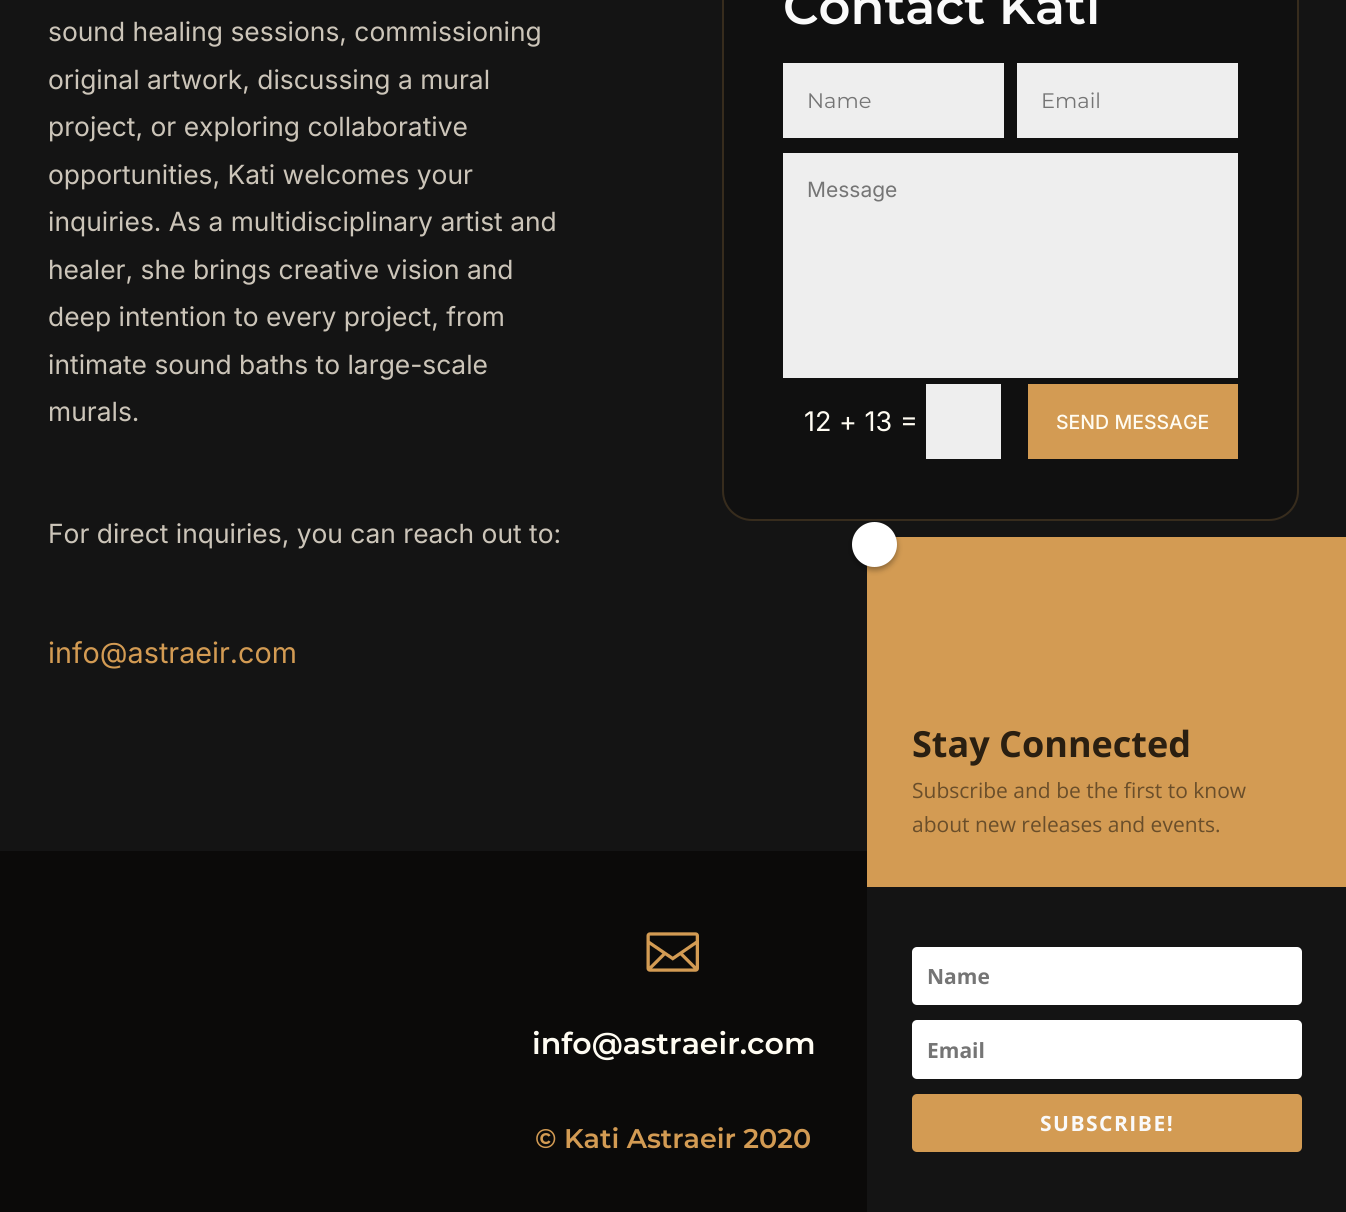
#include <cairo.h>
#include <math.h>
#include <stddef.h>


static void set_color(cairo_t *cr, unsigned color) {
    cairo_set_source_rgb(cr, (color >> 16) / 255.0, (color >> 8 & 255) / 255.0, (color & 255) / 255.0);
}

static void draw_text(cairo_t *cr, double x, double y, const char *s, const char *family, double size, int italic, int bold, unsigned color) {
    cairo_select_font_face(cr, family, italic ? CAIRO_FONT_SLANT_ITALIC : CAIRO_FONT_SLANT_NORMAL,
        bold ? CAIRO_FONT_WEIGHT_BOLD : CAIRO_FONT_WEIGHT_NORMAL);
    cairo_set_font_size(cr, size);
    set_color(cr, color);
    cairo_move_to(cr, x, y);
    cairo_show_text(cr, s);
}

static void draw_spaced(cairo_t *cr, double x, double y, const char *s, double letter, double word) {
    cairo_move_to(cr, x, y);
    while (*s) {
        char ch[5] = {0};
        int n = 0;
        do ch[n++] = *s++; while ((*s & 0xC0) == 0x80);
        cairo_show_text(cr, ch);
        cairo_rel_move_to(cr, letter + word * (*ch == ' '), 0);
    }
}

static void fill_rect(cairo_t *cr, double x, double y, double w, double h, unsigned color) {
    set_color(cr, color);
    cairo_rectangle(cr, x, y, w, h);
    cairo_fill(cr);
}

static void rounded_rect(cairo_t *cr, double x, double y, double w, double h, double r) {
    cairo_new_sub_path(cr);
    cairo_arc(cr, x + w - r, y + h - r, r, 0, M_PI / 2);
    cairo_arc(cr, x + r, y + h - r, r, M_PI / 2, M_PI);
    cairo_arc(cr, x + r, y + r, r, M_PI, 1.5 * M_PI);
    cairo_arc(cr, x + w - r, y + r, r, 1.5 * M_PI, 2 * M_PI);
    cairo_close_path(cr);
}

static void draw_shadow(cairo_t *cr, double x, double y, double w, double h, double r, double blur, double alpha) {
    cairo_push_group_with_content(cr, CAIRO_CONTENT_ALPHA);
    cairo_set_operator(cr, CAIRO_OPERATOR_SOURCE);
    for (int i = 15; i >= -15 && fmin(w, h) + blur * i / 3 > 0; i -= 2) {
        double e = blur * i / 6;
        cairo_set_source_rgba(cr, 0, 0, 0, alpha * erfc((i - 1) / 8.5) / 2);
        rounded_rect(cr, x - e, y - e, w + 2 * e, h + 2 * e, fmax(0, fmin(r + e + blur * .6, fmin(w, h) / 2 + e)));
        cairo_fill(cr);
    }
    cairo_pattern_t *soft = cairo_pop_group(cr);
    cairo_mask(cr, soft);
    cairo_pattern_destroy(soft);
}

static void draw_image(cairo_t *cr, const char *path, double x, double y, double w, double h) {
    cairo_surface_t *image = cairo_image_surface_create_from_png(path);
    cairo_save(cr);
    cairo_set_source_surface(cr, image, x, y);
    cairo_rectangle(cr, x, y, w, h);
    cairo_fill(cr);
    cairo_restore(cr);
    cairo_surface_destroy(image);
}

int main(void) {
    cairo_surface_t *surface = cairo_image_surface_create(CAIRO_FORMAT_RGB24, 1346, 1212);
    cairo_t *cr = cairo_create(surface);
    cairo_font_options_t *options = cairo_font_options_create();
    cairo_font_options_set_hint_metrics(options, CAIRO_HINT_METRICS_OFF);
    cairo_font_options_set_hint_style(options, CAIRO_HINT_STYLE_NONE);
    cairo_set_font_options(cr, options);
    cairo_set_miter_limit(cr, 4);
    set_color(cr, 0x141414);
    cairo_paint(cr);
    draw_text(cr, 48, 41, "sound healing sessions, commissioning", "Inter", 26.4, 0, 0, 0xCCC5B9);
    draw_text(cr, 48, 89, "original artwork, discussing a mural", "Inter", 26.4, 0, 0, 0xCCC5B9);
    draw_text(cr, 48, 136, "project, or exploring collaborative", "Inter", 26.4, 0, 0, 0xCCC5B9);
    draw_text(cr, 48, 184, "opportunities, Kati welcomes your", "Inter", 26.4, 0, 0, 0xCCC5B9);
    draw_text(cr, 48, 231, "inquiries. As a multidisciplinary artist and", "Inter", 26.4, 0, 0, 0xCCC5B9);
    draw_text(cr, 48, 279, "healer, she brings creative vision and", "Inter", 26.4, 0, 0, 0xCCC5B9);
    draw_text(cr, 48, 326, "deep intention to every project, from", "Inter", 26.4, 0, 0, 0xCCC5B9);
    draw_text(cr, 48, 374, "intimate sound baths to large-scale", "Inter", 26.4, 0, 0, 0xCCC5B9);
    draw_text(cr, 48, 421, "murals.", "Inter", 26.4, 0, 0, 0xCCC5B9);
    draw_text(cr, 48, 543, "For direct inquiries, you can reach out to:", "Inter", 26.4, 0, 0, 0xCCC5B9);
    draw_text(cr, 48, 663, "info@astraeir.com", "Inter", 28.75, 0, 0, 0xD39B53);
    set_color(cr, 0x101010);
    rounded_rect(cr, 723, -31, 575, 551, 29);
    cairo_fill_preserve(cr);
    set_color(cr, 0x372C1D);
    cairo_stroke(cr);
    draw_text(cr, 783, 24, "Contact Kati", "Montserrat SemiBold", 49.5, 0, 0, 0xFAFAFA);
    fill_rect(cr, 783, 63, 221, 75, 0xEEEEEE);
    draw_text(cr, 807, 108, "Name", "Montserrat", 21, 0, 0, 0x757575);
    fill_rect(cr, 1017, 63, 221, 75, 0xEEEEEE);
    draw_text(cr, 1041, 108, "Email", "Montserrat", 21, 0, 0, 0x757575);
    fill_rect(cr, 783, 153, 455, 225, 0xEEEEEE);
    draw_text(cr, 807, 197, "Message", "Inter", 21, 0, 0, 0x757575);
    draw_text(cr, 804, 431, "12 + 13", "Inter", 27, 0, 0, 0xFFFCF2);
    draw_text(cr, 900, 429, "=", "Inter", 27, 0, 0, 0xFFFCF2);
    fill_rect(cr, 926, 384, 75, 75, 0xEEEEEE);
    fill_rect(cr, 1028, 384, 210, 75, 0xD39B53);
    draw_text(cr, 1056, 429, "SEND MESSAGE", "Inter Medium", 19.5, 0, 0, 0xFFFCF2);
    fill_rect(cr, 0, 851, 867, 361, 0x0B0A09);
    draw_image(cr, "assets/img1.png", 646, 932, 53, 40);
    draw_text(cr, 532, 1054, "info@astraeir.com", "Montserrat SemiBold", 30, 0, 0, 0xFFFCF2);
    draw_text(cr, 535, 1148, "© Kati Astraeir 2020", "Montserrat SemiBold", 27, 0, 0, 0xD39B53);
    fill_rect(cr, 867, 537, 479, 350, 0xD39B53);
    set_color(cr, 0x000000);
    draw_shadow(cr, 852, 525, 45, 45, 22.5, 3, 0.34);
    set_color(cr, 0xFFFFFF);
    cairo_arc(cr, 874.5, 544.5, 22.5, 0, 2 * M_PI);
    cairo_fill(cr);
    draw_text(cr, 912, 757, "Stay Connected", "Open Sans", 36, 0, 1, 0x2A1F11);
    draw_text(cr, 912, 798, "Subscribe and be the first to know", "Open Sans", 21, 0, 0, 0x6A4E2A);
    draw_text(cr, 912, 832, "about new releases and events.", "Open Sans", 21, 0, 0, 0x6A4E2A);
    set_color(cr, 0xFFFFFF);
    rounded_rect(cr, 912, 947, 390, 58, 5);
    cairo_fill(cr);
    draw_text(cr, 927, 984, "Name", "Open Sans", 21, 0, 1, 0x757575);
    set_color(cr, 0xFFFFFF);
    rounded_rect(cr, 912, 1020, 390, 59, 5);
    cairo_fill(cr);
    draw_text(cr, 927, 1058, "Email", "Open Sans", 21, 0, 1, 0x757575);
    set_color(cr, 0xD39B53);
    rounded_rect(cr, 912, 1094, 390, 58, 5);
    cairo_fill(cr);
    set_color(cr, 0xFAFAFA);
    draw_spaced(cr, 1040, 1131, "SUBSCRIBE!", 1.5, 0);
    cairo_surface_write_to_png(surface, "output.png");
    cairo_font_options_destroy(options);
    cairo_destroy(cr);
    cairo_surface_destroy(surface);
    return 0;
}
